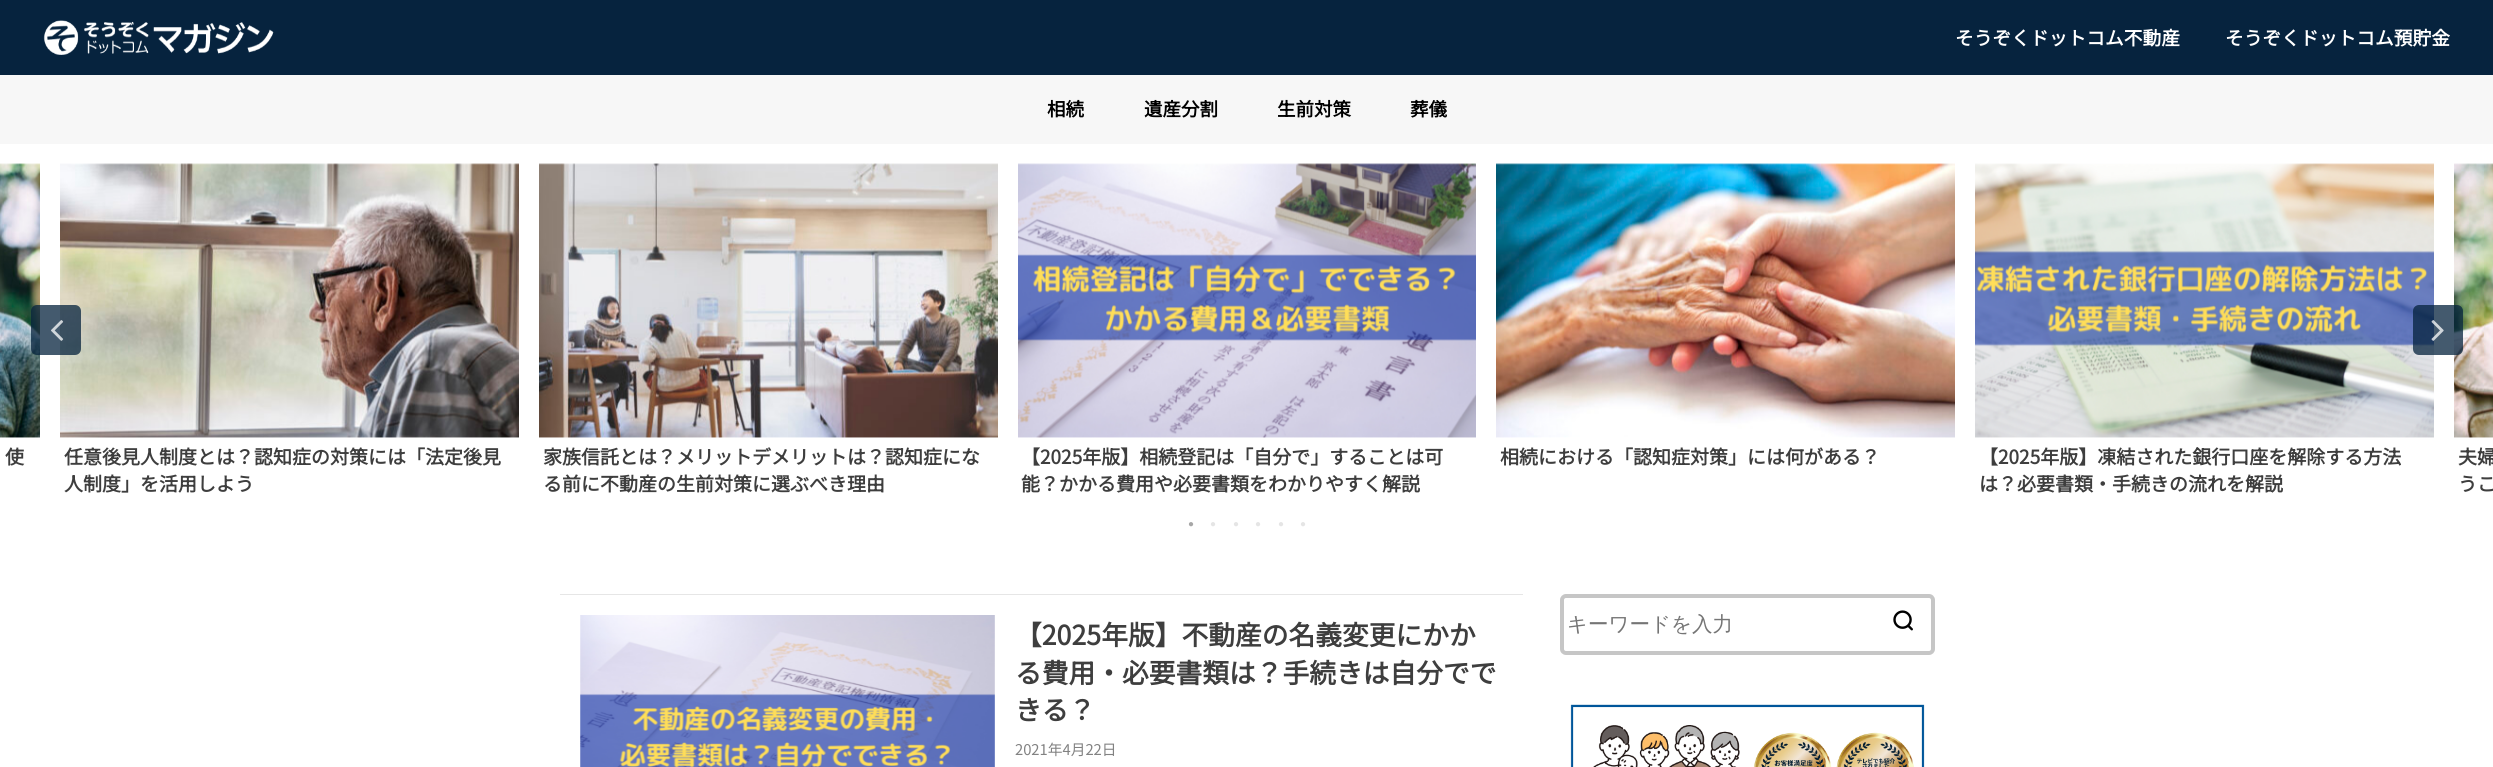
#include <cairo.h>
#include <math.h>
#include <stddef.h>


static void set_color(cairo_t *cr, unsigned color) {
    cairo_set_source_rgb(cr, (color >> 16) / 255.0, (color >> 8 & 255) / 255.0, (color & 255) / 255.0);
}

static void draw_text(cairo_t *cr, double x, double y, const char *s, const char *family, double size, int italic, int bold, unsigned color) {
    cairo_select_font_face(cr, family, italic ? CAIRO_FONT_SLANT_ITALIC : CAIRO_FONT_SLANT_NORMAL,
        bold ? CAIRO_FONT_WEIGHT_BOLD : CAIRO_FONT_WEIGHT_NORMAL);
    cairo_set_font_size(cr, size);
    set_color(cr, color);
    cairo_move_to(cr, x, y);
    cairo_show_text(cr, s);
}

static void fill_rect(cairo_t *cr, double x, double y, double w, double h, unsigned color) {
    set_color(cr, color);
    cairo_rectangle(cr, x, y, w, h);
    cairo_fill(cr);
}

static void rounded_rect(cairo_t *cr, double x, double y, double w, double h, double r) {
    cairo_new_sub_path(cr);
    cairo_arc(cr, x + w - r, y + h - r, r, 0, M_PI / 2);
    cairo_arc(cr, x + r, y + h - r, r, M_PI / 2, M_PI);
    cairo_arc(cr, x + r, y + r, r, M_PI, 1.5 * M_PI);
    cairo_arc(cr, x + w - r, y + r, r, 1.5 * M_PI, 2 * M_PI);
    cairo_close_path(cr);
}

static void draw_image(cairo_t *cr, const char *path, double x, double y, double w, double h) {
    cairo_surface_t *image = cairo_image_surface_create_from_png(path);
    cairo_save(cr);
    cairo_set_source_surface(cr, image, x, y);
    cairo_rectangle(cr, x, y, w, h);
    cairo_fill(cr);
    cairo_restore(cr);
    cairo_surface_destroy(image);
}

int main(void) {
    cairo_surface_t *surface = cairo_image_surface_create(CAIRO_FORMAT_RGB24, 2493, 767);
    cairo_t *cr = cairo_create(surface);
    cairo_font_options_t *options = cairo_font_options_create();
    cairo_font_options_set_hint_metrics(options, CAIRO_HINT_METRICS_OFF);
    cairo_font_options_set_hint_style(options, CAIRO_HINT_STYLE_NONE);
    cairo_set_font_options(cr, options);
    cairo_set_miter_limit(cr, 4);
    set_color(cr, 0xFFFFFF);
    cairo_paint(cr);
    fill_rect(cr, 0, 0, 2493, 75, 0x06233E);
    draw_image(cr, "assets/img1.png", 43, 20, 231, 35);
    draw_text(cr, 1955, 45, "そうぞくドットコム不動産", "Noto Sans JP", 18.75, 0, 1, 0xFFFFFF);
    draw_text(cr, 2225, 45, "そうぞくドットコム預貯金", "Noto Sans JP", 18.75, 0, 1, 0xFFFFFF);
    fill_rect(cr, 0, 75, 2493, 69, 0xF7F7F7);
    draw_text(cr, 1047, 116, "相続", "Noto Sans JP", 18.5, 0, 1, 0x000000);
    draw_text(cr, 1144, 116, "遺産分割", "Noto Sans JP", 18.5, 0, 1, 0x000000);
    draw_text(cr, 1277, 116, "生前対策", "Noto Sans JP", 18.5, 0, 1, 0x000000);
    draw_text(cr, 1410, 116, "葬儀", "Noto Sans JP", 18.5, 0, 1, 0x000000);
    draw_image(cr, "assets/img4.png", 0, 163, 40, 275);
    draw_image(cr, "assets/img5.png", 60, 163, 459, 275);
    cairo_set_source_rgba(cr, 0.024, 0.137, 0.243, 0.75);
    rounded_rect(cr, 31, 305, 50, 50, 6);
    cairo_fill(cr);
    draw_image(cr, "assets/img2.png", 51, 320, 13, 21);
    draw_image(cr, "assets/img9.png", 1975, 163, 459, 275);
    draw_image(cr, "assets/img10.png", 2454, 163, 39, 275);
    rounded_rect(cr, 2413, 305, 50, 50, 6);
    cairo_fill(cr);
    draw_image(cr, "assets/img3.png", 2431, 320, 13, 21);
    draw_text(cr, 5, 464, "使", "Noto Sans JP", 19, 0, 1, 0x3E3E3E);
    draw_text(cr, 64, 464, "任意後見人制度とは？認知症の対策には「法定後見", "Noto Sans JP", 19, 0, 1, 0x3E3E3E);
    draw_text(cr, 64, 491, "人制度」を活用しよう", "Noto Sans JP", 19, 0, 1, 0x3E3E3E);
    draw_image(cr, "assets/img6.png", 539, 163, 459, 275);
    draw_text(cr, 543, 464, "家族信託とは？メリットデメリットは？認知症にな", "Noto Sans JP", 19, 0, 1, 0x3E3E3E);
    draw_text(cr, 543, 491, "る前に不動産の生前対策に選ぶべき理由", "Noto Sans JP", 19, 0, 1, 0x3E3E3E);
    draw_image(cr, "assets/img7.png", 1018, 163, 458, 275);
    draw_text(cr, 1021, 464, "【2025年版】相続登記は「自分で」することは可", "Noto Sans JP", 19, 0, 1, 0x3E3E3E);
    draw_text(cr, 1021, 491, "能？かかる費用や必要書類をわかりやすく解説", "Noto Sans JP", 19, 0, 1, 0x3E3E3E);
    draw_image(cr, "assets/img8.png", 1496, 163, 459, 275);
    draw_text(cr, 1500, 464, "相続における「認知症対策」には何がある？", "Noto Sans JP", 19, 0, 1, 0x3E3E3E);
    draw_text(cr, 1979, 464, "【2025年版】凍結された銀行口座を解除する方法", "Noto Sans JP", 19, 0, 1, 0x3E3E3E);
    draw_text(cr, 1979, 491, "は？必要書類・手続きの流れを解説", "Noto Sans JP", 19, 0, 1, 0x3E3E3E);
    draw_text(cr, 2458, 464, "夫婦", "Noto Sans JP", 19, 0, 1, 0x3E3E3E);
    draw_text(cr, 2458, 491, "うこ", "Noto Sans JP", 19, 0, 1, 0x3E3E3E);
    draw_text(cr, 1188, 527, "●", "Liberation Sans", 10, 0, 0, 0xA7A7A7);
    draw_text(cr, 1210, 527, "●", "Liberation Sans", 10, 0, 0, 0xE5E5E5);
    draw_text(cr, 1233, 527, "●", "Liberation Sans", 10, 0, 0, 0xE5E5E5);
    draw_text(cr, 1255, 527, "●", "Liberation Sans", 10, 0, 0, 0xE5E5E5);
    draw_text(cr, 1278, 527, "●", "Liberation Sans", 10, 0, 0, 0xE5E5E5);
    draw_text(cr, 1300, 527, "●", "Liberation Sans", 10, 0, 0, 0xE5E5E5);
    fill_rect(cr, 560, 594, 963, 1, 0xE6E6E6);
    draw_image(cr, "assets/img11.png", 580, 615, 415, 152);
    draw_text(cr, 1015, 645, "【2025年版】不動産の名義変更にかか", "Noto Sans JP", 26.75, 0, 1, 0x3E3E3E);
    draw_text(cr, 1015, 683, "る費用・必要書類は？手続きは自分でで", "Noto Sans JP", 26.75, 0, 1, 0x3E3E3E);
    draw_text(cr, 1015, 720, "きる？", "Noto Sans JP", 26.75, 0, 1, 0x3E3E3E);
    draw_text(cr, 1015, 755, "2021年4月22日", "Noto Sans JP Thin", 14.75, 0, 0, 0x828282);
    rounded_rect(cr, 1562, 596, 371, 57, 4);
    set_color(cr, 0xC6C6C6);
    cairo_set_line_width(cr, 4);
    cairo_stroke(cr);
    draw_text(cr, 1567, 631, "キーワードを入力", "WenQuanYi Zen Hei Medium", 20.5, 0, 0, 0x757575);
    draw_image(cr, "assets/img12.png", 1893, 610, 20, 21);
    draw_image(cr, "assets/img13.png", 1570, 704, 355, 63);
    cairo_surface_write_to_png(surface, "output.png");
    cairo_font_options_destroy(options);
    cairo_destroy(cr);
    cairo_surface_destroy(surface);
    return 0;
}
